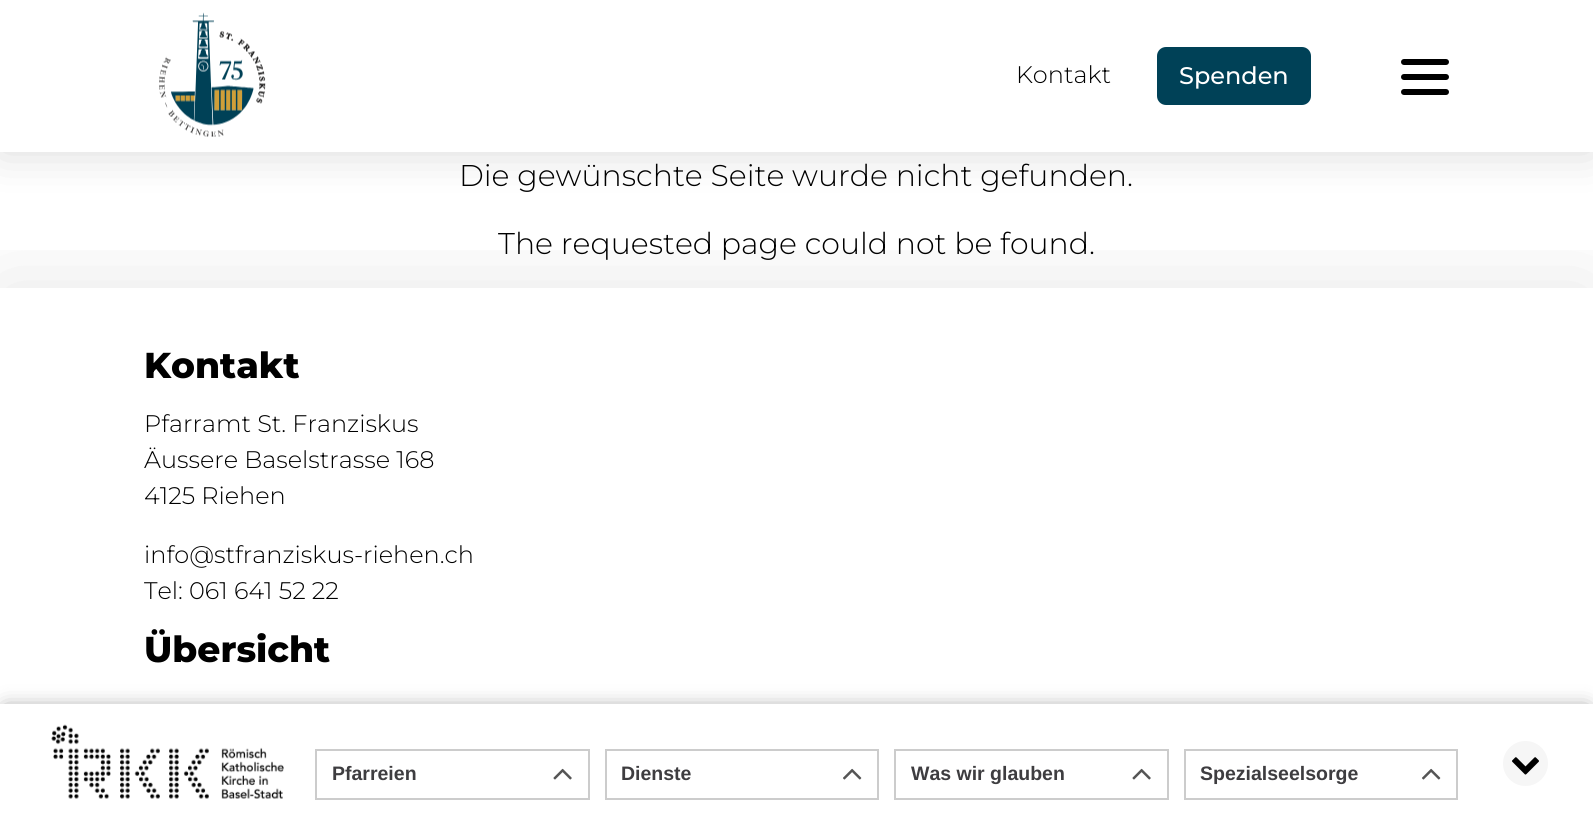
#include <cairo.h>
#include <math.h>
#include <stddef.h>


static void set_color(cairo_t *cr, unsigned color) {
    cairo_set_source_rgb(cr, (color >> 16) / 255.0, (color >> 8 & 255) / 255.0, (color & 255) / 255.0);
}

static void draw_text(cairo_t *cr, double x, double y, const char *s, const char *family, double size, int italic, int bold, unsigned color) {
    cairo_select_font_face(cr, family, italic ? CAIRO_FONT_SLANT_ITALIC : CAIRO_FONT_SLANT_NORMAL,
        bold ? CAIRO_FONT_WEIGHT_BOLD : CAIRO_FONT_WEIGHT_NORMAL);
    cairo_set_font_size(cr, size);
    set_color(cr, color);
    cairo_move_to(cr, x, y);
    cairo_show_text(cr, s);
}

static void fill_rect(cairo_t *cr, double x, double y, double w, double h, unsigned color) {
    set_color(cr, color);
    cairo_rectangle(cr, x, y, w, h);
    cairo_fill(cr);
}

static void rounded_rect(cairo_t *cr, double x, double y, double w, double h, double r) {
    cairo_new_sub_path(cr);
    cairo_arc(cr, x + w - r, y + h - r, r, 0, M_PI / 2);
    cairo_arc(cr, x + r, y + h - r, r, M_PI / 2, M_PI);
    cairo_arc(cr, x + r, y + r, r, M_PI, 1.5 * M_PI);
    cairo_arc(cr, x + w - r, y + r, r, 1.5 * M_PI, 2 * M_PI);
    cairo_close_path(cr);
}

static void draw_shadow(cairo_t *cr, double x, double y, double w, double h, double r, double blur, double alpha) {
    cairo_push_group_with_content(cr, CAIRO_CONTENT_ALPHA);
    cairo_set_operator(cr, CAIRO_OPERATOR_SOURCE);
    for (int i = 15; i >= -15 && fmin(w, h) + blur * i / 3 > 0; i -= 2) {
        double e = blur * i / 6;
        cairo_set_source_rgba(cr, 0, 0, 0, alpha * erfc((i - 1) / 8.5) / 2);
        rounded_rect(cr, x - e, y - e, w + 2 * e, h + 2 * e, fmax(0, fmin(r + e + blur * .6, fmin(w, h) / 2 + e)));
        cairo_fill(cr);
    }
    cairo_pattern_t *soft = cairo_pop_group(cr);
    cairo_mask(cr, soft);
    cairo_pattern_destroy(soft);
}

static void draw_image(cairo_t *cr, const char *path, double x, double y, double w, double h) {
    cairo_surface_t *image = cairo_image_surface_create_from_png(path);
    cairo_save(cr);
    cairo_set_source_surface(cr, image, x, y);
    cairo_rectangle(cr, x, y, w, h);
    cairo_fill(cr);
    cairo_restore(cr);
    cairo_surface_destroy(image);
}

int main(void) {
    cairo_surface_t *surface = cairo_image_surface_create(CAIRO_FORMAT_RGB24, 1593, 831);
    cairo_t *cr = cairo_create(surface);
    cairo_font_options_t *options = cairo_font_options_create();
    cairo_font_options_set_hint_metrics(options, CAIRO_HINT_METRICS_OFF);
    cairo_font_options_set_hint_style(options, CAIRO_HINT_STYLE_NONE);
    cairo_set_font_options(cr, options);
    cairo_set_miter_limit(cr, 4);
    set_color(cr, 0xFFFFFF);
    cairo_paint(cr);
    set_color(cr, 0x000000);
    draw_shadow(cr, 0, 0, 1593, 152, 0, 22.5, 0.15);
    fill_rect(cr, 0, 0, 1593, 152, 0xFFFFFF);
    draw_image(cr, "assets/img1.png", 159, 12, 107, 125);
    draw_text(cr, 1016, 83, "Kontakt", "Montserrat Thin", 24, 0, 0, 0x000000);
    set_color(cr, 0x004157);
    rounded_rect(cr, 1157, 47, 154, 58, 9);
    cairo_fill(cr);
    draw_text(cr, 1179, 84, "Spenden", "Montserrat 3 Thin", 24, 0, 0, 0xFFFFFF);
    set_color(cr, 0x000000);
    rounded_rect(cr, 1401, 74, 48, 6, 3);
    cairo_fill(cr);
    rounded_rect(cr, 1401, 59, 48, 6, 3);
    cairo_fill(cr);
    rounded_rect(cr, 1401, 89, 48, 6, 3);
    cairo_fill(cr);
    draw_text(cr, 459, 186, "Die gewünschte Seite wurde nicht gefunden.", "Montserrat Thin", 30, 0, 0, 0x000000);
    draw_text(cr, 498, 254, "The requested page could not be found.", "Montserrat Thin", 30, 0, 0, 0x000000);
    cairo_save(cr);
    cairo_rectangle(cr, 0, 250, 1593, 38);
    cairo_clip(cr);
    set_color(cr, 0x000000);
    draw_shadow(cr, 0, 288, 1593, 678, 0, 45, 0.1);
    cairo_restore(cr);
    draw_text(cr, 144, 378, "Kontakt", "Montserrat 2 Thin", 36, 0, 0, 0x000000);
    draw_text(cr, 144, 432, "Pfarramt St. Franziskus", "Montserrat Thin", 24, 0, 0, 0x000000);
    draw_text(cr, 144, 468, "Äussere Baselstrasse 168", "Montserrat Thin", 24, 0, 0, 0x000000);
    draw_text(cr, 144, 504, "4125 Riehen", "Montserrat Thin", 24, 0, 0, 0x000000);
    draw_text(cr, 144, 563, "info@stfranziskus-riehen.ch", "Montserrat Thin", 24, 0, 0, 0x000000);
    draw_text(cr, 144, 599, "Tel: 061 641 52 22", "Montserrat Thin", 24, 0, 0, 0x000000);
    draw_text(cr, 144, 662, "Übersicht", "Montserrat 2 Thin", 36, 0, 0, 0x000000);
    set_color(cr, 0x000000);
    draw_shadow(cr, 6, 710, 1581, 115, 0, 10.5, 0.5);
    fill_rect(cr, 0, 704, 1593, 127, 0xFFFFFF);
    draw_image(cr, "assets/img2.png", 51, 724, 233, 75);
    cairo_rectangle(cr, 316, 750, 273, 49);
    set_color(cr, 0xCCCCCC);
    cairo_stroke(cr);
    draw_text(cr, 332, 780, "Pfarreien", "Liberation Sans", 19.5, 0, 1, 0x3E3D40);
    draw_image(cr, "assets/img3.png", 553, 768, 19, 12);
    cairo_rectangle(cr, 606, 750, 272, 49);
    set_color(cr, 0xCCCCCC);
    cairo_stroke(cr);
    draw_text(cr, 621, 780, "Dienste", "Liberation Sans", 19.5, 0, 1, 0x3E3D40);
    draw_image(cr, "assets/img4.png", 843, 768, 19, 12);
    cairo_rectangle(cr, 895, 750, 273, 49);
    set_color(cr, 0xCCCCCC);
    cairo_stroke(cr);
    draw_text(cr, 911, 780, "Was wir glauben", "Liberation Sans", 19.5, 0, 1, 0x3E3D40);
    draw_image(cr, "assets/img3.png", 1132, 768, 19, 12);
    cairo_rectangle(cr, 1185, 750, 272, 49);
    set_color(cr, 0xCCCCCC);
    cairo_stroke(cr);
    draw_text(cr, 1200, 780, "Spezialseelsorge", "Liberation Sans", 19.5, 0, 1, 0x3E3D40);
    draw_image(cr, "assets/img4.png", 1422, 768, 19, 12);
    set_color(cr, 0xF6F6F6);
    cairo_arc(cr, 1525.5, 763.5, 22.5, 0, 2 * M_PI);
    cairo_fill(cr);
    draw_image(cr, "assets/img5.png", 1512, 757, 27, 18);
    cairo_surface_write_to_png(surface, "output.png");
    cairo_font_options_destroy(options);
    cairo_destroy(cr);
    cairo_surface_destroy(surface);
    return 0;
}
